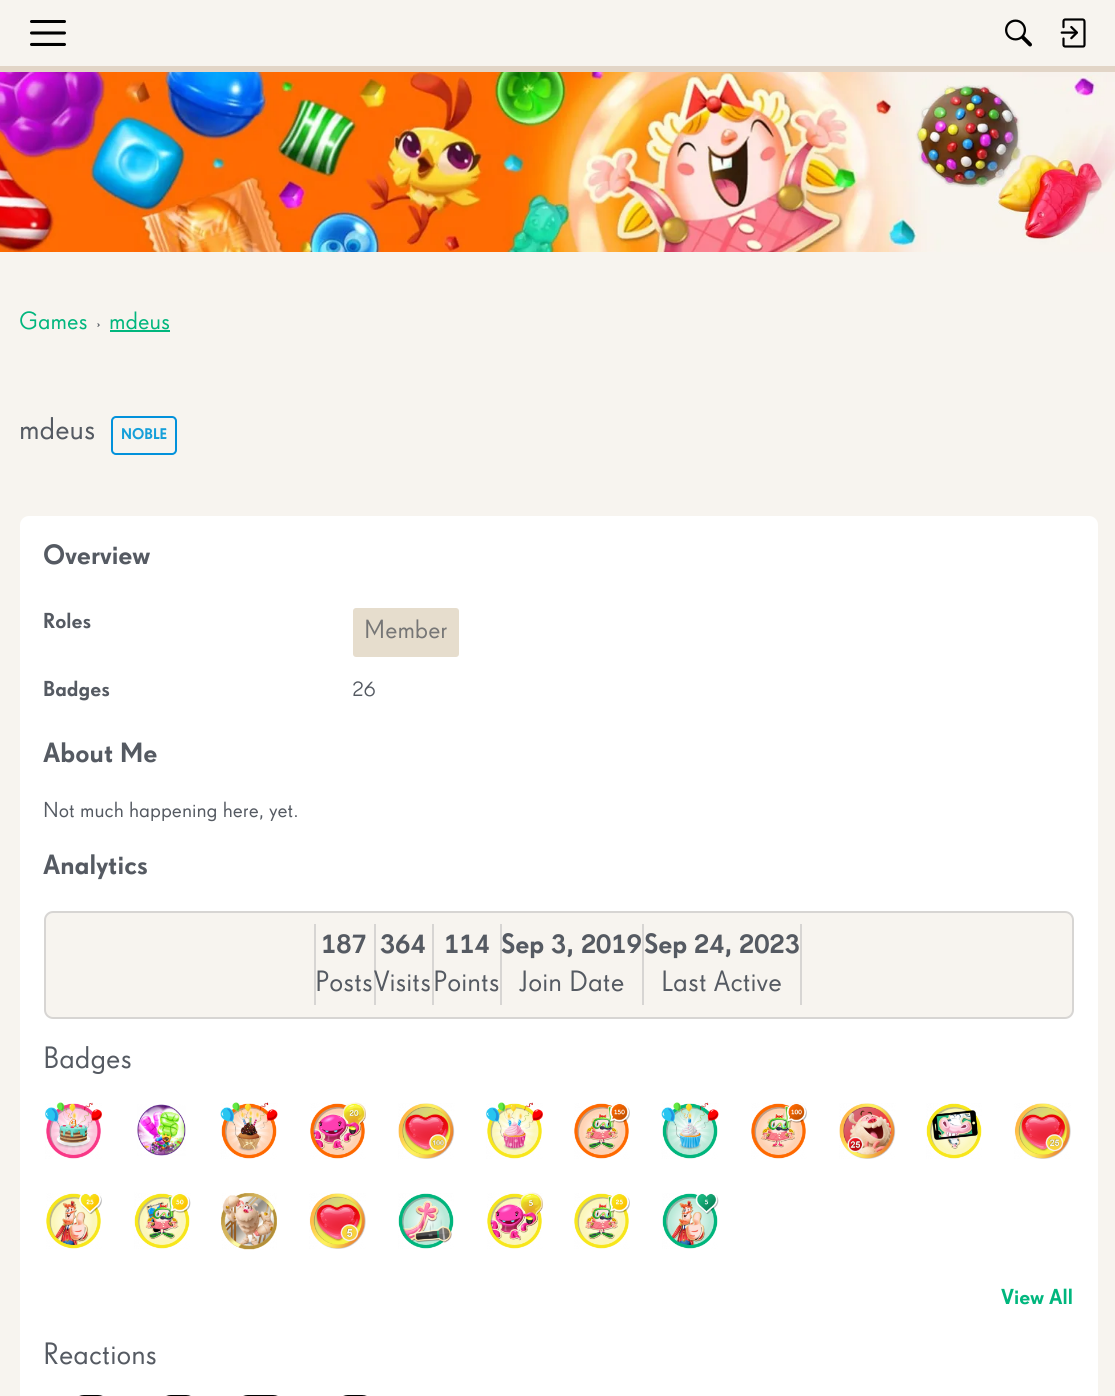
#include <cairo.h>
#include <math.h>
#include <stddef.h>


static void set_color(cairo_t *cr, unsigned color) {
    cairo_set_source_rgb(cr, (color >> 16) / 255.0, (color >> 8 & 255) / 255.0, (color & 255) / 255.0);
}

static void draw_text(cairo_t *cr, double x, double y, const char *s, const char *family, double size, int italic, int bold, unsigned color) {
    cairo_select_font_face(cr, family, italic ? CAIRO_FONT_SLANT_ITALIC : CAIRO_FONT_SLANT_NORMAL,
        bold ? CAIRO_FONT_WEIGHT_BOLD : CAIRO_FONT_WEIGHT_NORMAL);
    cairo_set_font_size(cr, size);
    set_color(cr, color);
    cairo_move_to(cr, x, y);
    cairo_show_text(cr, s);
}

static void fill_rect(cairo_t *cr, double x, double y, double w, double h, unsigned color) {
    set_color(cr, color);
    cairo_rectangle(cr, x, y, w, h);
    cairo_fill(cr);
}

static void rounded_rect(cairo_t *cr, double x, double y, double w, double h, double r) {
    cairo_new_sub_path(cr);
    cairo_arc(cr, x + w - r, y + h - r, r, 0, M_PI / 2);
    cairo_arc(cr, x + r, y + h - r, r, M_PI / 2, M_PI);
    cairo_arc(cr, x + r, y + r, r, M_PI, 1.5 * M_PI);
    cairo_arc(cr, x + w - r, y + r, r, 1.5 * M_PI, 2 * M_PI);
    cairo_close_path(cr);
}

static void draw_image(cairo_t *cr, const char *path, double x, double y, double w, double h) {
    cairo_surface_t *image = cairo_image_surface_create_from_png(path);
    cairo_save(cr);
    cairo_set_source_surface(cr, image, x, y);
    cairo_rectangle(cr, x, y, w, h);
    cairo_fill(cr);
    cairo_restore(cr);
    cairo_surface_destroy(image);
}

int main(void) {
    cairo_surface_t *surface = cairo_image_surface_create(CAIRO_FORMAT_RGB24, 1115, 1396);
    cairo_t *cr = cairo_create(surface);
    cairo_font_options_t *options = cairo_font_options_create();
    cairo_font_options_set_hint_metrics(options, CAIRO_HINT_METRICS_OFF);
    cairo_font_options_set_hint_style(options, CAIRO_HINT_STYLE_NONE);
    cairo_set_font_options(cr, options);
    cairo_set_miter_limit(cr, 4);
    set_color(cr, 0xF7F4EF);
    cairo_paint(cr);
    fill_rect(cr, 0, 66, 1115, 6, 0xE2D5C7);
    draw_image(cr, "assets/img1.png", 30, 20, 36, 26);
    draw_image(cr, "assets/img2.png", 1005, 19, 27, 28);
    draw_image(cr, "assets/img3.png", 1060, 18, 26, 30);
    draw_image(cr, "assets/img4.png", 0, 72, 1115, 180);
    draw_text(cr, 19, 329, "Games", "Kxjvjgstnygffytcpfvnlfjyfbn", 24, 0, 0, 0x00B67D);
    draw_text(cr, 96, 329, "›", "Kxjvjgstnygffytcpfvnlfjyfbn", 18, 0, 0, 0x555A62);
    draw_text(cr, 109, 329, "mdeus", "Kxjvjgstnygffytcpfvnlfjyfbn", 24, 0, 0, 0x00B67D);
    fill_rect(cr, 110, 330, 60, 2, 0x00B67D);
    draw_text(cr, 19, 439, "mdeus", "Kxjvjgstnygffytcpfvnlfjyfbn", 30, 0, 0, 0x555A62);
    rounded_rect(cr, 112, 417, 64, 37, 4);
    set_color(cr, 0x0291DB);
    cairo_stroke(cr);
    draw_text(cr, 121, 439, "NOBLE", "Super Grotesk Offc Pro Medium", 15, 0, 0, 0x159FD9);
    set_color(cr, 0xFFFFFF);
    rounded_rect(cr, 20, 516, 1078, 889, 9);
    cairo_fill(cr);
    draw_text(cr, 43, 564, "Overview", "Super Grotesk Offc Pro Medium", 27, 0, 0, 0x555A62);
    draw_text(cr, 43, 628, "Roles", "Super Grotesk Offc Pro Medium", 21, 0, 0, 0x555A62);
    set_color(cr, 0xE6DDCD);
    rounded_rect(cr, 353, 608, 106, 49, 3);
    cairo_fill(cr);
    draw_text(cr, 364, 638, "Member", "Kxjvjgstnygffytcpfvnlfjyfbn", 25.5, 0, 0, 0x767676);
    draw_text(cr, 43, 696, "Badges", "Super Grotesk Offc Pro Medium", 21, 0, 0, 0x555A62);
    draw_text(cr, 352, 696, "26", "Kxjvjgstnygffytcpfvnlfjyfbn", 21, 0, 0, 0x555A62);
    draw_text(cr, 43, 762, "About Me", "Super Grotesk Offc Pro Medium", 27, 0, 0, 0x555A62);
    draw_text(cr, 43, 817, "Not much happening here, yet.", "Kxjvjgstnygffytcpfvnlfjyfbn", 21, 0, 0, 0x555A62);
    draw_text(cr, 43, 874, "Analytics", "Super Grotesk Offc Pro Medium", 27, 0, 0, 0x555A62);
    set_color(cr, 0xF7F4EF);
    rounded_rect(cr, 45, 912, 1028, 106, 8);
    cairo_fill_preserve(cr);
    set_color(cr, 0xD7D5D3);
    cairo_stroke(cr);
    fill_rect(cr, 374, 924, 2, 81, 0xD7D5D3);
    fill_rect(cr, 314, 924, 2, 81, 0xD7D5D3);
    draw_text(cr, 321, 953, "187", "Super Grotesk Offc Pro Medium", 27, 0, 0, 0x555A62);
    draw_text(cr, 315, 991, "Posts", "Kxjvjgstnygffytcpfvnlfjyfbn", 28.5, 0, 0, 0x555A62);
    fill_rect(cr, 432, 924, 2, 81, 0xD7D5D3);
    draw_text(cr, 380, 953, "364", "Super Grotesk Offc Pro Medium", 27, 0, 0, 0x555A62);
    draw_text(cr, 374, 991, "Visits", "Kxjvjgstnygffytcpfvnlfjyfbn", 28.5, 0, 0, 0x555A62);
    fill_rect(cr, 500, 924, 2, 81, 0xD7D5D3);
    draw_text(cr, 444, 953, "114", "Super Grotesk Offc Pro Medium", 27, 0, 0, 0x555A62);
    draw_text(cr, 433, 991, "Points", "Kxjvjgstnygffytcpfvnlfjyfbn", 28.5, 0, 0, 0x555A62);
    fill_rect(cr, 642, 924, 2, 81, 0xD7D5D3);
    draw_text(cr, 501, 953, "Sep 3, 2019", "Super Grotesk Offc Pro Medium", 27, 0, 0, 0x555A62);
    draw_text(cr, 519, 991, "Join Date", "Kxjvjgstnygffytcpfvnlfjyfbn", 28.5, 0, 0, 0x555A62);
    fill_rect(cr, 800, 924, 2, 81, 0xD7D5D3);
    draw_text(cr, 644, 953, "Sep 24, 2023", "Super Grotesk Offc Pro Medium", 27, 0, 0, 0x555A62);
    draw_text(cr, 661, 991, "Last Active", "Kxjvjgstnygffytcpfvnlfjyfbn", 28.5, 0, 0, 0x555A62);
    draw_text(cr, 43, 1068, "Badges", "Kxjvjgstnygffytcpfvnlfjyfbn", 30, 0, 0, 0x555A62);
    draw_image(cr, "assets/img5.png", 45, 1102, 57, 57);
    draw_image(cr, "assets/img6.png", 137, 1104, 49, 52);
    draw_image(cr, "assets/img7.png", 220, 1102, 58, 57);
    draw_image(cr, "assets/img8.png", 310, 1102, 56, 57);
    draw_image(cr, "assets/img9.png", 398, 1103, 57, 56);
    draw_image(cr, "assets/img10.png", 486, 1102, 57, 57);
    draw_image(cr, "assets/img11.png", 574, 1102, 56, 57);
    draw_image(cr, "assets/img12.png", 661, 1102, 58, 57);
    draw_image(cr, "assets/img13.png", 751, 1102, 56, 57);
    draw_image(cr, "assets/img14.png", 839, 1103, 57, 56);
    draw_image(cr, "assets/img15.png", 926, 1103, 56, 56);
    draw_image(cr, "assets/img16.png", 1014, 1103, 57, 56);
    draw_image(cr, "assets/img17.png", 46, 1193, 56, 56);
    draw_image(cr, "assets/img18.png", 134, 1192, 57, 57);
    draw_image(cr, "assets/img19.png", 221, 1193, 56, 57);
    draw_image(cr, "assets/img20.png", 309, 1193, 57, 56);
    draw_image(cr, "assets/img21.png", 398, 1193, 56, 56);
    draw_image(cr, "assets/img22.png", 487, 1192, 56, 57);
    draw_image(cr, "assets/img23.png", 574, 1192, 56, 57);
    draw_image(cr, "assets/img24.png", 662, 1193, 57, 56);
    draw_text(cr, 1001, 1304, "View All", "Super Grotesk Offc Pro Medium", 21, 0, 0, 0x00B67D);
    draw_text(cr, 43, 1364, "Reactions", "Kxjvjgstnygffytcpfvnlfjyfbn", 30, 0, 0, 0x555A62);
    rounded_rect(cr, 73, 1396, 36, 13, 11);
    set_color(cr, 0x000000);
    cairo_stroke(cr);
    rounded_rect(cr, 160, 1396, 37, 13, 11);
    cairo_stroke(cr);
    rounded_rect(cr, 237, 1396, 47, 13, 11);
    cairo_stroke(cr);
    rounded_rect(cr, 337, 1396, 36, 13, 11);
    cairo_stroke(cr);
    cairo_surface_write_to_png(surface, "output.png");
    cairo_font_options_destroy(options);
    cairo_destroy(cr);
    cairo_surface_destroy(surface);
    return 0;
}
